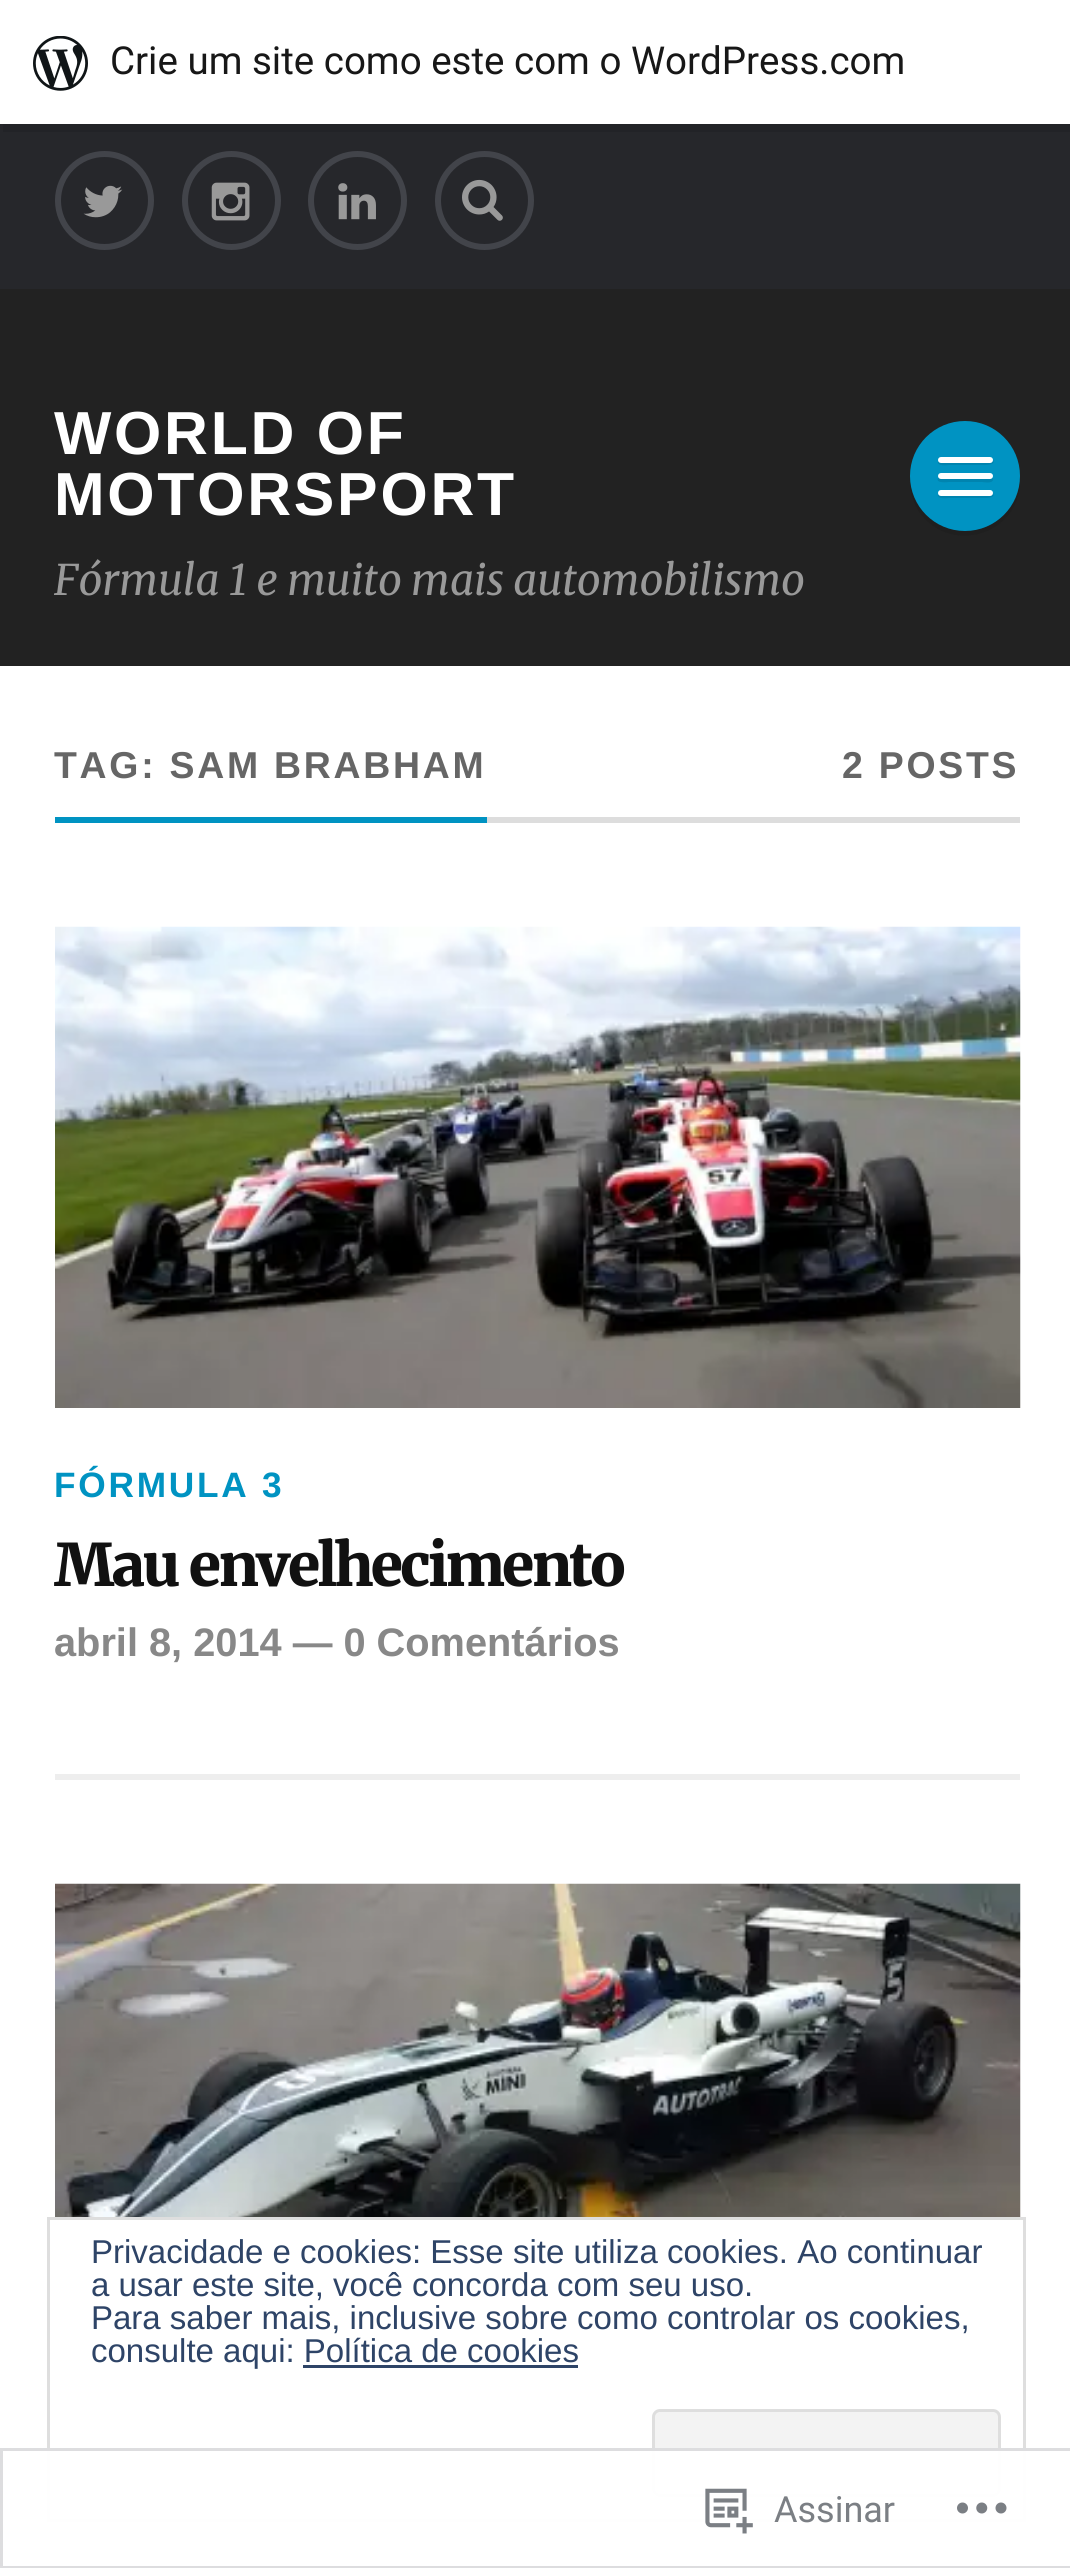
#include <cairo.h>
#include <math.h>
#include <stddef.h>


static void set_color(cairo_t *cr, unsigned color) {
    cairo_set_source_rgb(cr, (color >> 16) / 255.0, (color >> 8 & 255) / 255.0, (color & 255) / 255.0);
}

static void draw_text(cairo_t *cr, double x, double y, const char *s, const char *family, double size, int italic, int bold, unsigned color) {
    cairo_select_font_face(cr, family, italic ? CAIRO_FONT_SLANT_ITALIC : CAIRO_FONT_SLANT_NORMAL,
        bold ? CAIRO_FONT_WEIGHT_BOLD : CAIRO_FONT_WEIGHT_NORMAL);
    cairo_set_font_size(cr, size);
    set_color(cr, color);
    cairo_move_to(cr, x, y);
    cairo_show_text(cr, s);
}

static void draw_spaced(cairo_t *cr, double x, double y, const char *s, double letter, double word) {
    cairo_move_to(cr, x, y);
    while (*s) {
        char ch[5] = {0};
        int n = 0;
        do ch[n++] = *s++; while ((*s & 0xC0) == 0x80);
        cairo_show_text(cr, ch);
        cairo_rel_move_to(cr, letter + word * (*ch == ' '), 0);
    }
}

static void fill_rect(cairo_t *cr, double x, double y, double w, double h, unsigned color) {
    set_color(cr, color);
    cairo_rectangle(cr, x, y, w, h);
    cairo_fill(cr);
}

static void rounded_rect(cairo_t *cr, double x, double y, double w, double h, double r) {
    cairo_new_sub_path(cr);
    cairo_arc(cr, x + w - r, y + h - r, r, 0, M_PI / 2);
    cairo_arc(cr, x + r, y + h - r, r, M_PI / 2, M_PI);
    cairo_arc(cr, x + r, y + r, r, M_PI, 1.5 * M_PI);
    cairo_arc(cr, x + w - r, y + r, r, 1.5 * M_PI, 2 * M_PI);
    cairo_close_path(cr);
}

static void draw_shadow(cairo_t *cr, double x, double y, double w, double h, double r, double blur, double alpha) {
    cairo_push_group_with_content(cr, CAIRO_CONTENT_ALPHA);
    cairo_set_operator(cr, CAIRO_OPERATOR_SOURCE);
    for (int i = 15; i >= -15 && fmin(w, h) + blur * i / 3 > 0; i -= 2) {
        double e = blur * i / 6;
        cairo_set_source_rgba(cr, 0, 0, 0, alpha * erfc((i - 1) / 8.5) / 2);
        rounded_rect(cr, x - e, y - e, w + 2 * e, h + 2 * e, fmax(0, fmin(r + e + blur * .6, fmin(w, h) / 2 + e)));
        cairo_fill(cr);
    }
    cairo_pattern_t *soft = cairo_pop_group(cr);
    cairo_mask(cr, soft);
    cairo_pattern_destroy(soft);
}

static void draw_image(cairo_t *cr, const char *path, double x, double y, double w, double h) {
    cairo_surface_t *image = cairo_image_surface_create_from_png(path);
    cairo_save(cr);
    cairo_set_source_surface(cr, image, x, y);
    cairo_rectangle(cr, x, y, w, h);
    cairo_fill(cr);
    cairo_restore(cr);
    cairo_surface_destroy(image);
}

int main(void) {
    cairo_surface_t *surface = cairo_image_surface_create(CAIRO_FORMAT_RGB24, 1070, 2568);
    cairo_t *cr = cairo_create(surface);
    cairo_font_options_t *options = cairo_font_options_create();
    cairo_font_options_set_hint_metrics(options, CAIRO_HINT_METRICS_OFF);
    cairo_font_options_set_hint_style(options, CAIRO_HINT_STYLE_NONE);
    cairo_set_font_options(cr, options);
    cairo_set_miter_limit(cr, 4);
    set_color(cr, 0xFFFFFF);
    cairo_paint(cr);
    fill_rect(cr, 0, 124, 1070, 165, 0x26272B);
    set_color(cr, 0x000000);
    draw_shadow(cr, 0, 3, 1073, 124, 0, 3, 0.05);
    set_color(cr, 0x222327);
    cairo_new_path(cr);
    cairo_move_to(cr, 3, 124);
    cairo_line_to(cr, 3, 132);
    cairo_line_to(cr, 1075, 132);
    cairo_line_to(cr, 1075, 8);
    cairo_line_to(cr, 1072, 8);
    cairo_line_to(cr, 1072, 124);
    cairo_close_path(cr);
    cairo_fill(cr);
    fill_rect(cr, 0, 0, 1070, 124, 0xFFFFFF);
    draw_image(cr, "assets/img1.png", 33, 36, 55, 55);
    draw_text(cr, 110, 74, "Crie um site como este com o WordPress.com", "Roboto", 38.5, 0, 0, 0x171717);
    cairo_new_path(cr);
    cairo_arc(cr, 104.5, 200.5, 46.5, 0, 2 * M_PI);
    set_color(cr, 0x42444A);
    cairo_set_line_width(cr, 6);
    cairo_stroke(cr);
    draw_image(cr, "assets/img2.png", 83, 185, 40, 33);
    cairo_arc(cr, 231.5, 200.5, 46.5, 0, 2 * M_PI);
    cairo_stroke(cr);
    draw_image(cr, "assets/img3.png", 211, 182, 39, 39);
    cairo_arc(cr, 357.5, 200.5, 46.5, 0, 2 * M_PI);
    cairo_stroke(cr);
    draw_image(cr, "assets/img4.png", 338, 183, 38, 37);
    cairo_arc(cr, 484.5, 200.5, 46.5, 0, 2 * M_PI);
    cairo_stroke(cr);
    draw_image(cr, "assets/img5.png", 462, 179, 41, 42);
    fill_rect(cr, 0, 289, 1070, 377, 0x222222);
    cairo_select_font_face(cr, "Arimo", CAIRO_FONT_SLANT_NORMAL, CAIRO_FONT_WEIGHT_BOLD);
    cairo_set_font_size(cr, 60.75);
    set_color(cr, 0xFFFFFF);
    draw_spaced(cr, 54, 454, "WORLD OF", 2.75, 0);
    draw_spaced(cr, 54, 515, "MOTORSPORT", 2.75, 0);
    set_color(cr, 0x1F1F1F);
    cairo_new_path(cr);
    cairo_move_to(cr, 910, 476);
    cairo_curve_to(cr, 909, 488, 912, 501, 919, 512);
    cairo_curve_to(cr, 950, 556, 1020, 535, 1020, 481);
    cairo_curve_to(cr, 1015, 532, 948, 549, 920, 507);
    cairo_curve_to(cr, 914, 497, 910, 487, 910, 476);
    cairo_close_path(cr);
    cairo_fill(cr);
    set_color(cr, 0x0093C2);
    cairo_arc(cr, 965, 476, 55, 0, 2 * M_PI);
    cairo_fill(cr);
    set_color(cr, 0x0084AF);
    cairo_new_path(cr);
    cairo_move_to(cr, 938, 461);
    cairo_curve_to(cr, 936, 467, 949, 465, 949, 465);
    cairo_line_to(cr, 982, 465);
    cairo_curve_to(cr, 982, 465, 997, 466, 993, 460);
    cairo_curve_to(cr, 992, 461, 991, 462, 990, 462);
    cairo_line_to(cr, 940, 462);
    cairo_curve_to(cr, 940, 462, 939, 462, 938, 461);
    cairo_close_path(cr);
    cairo_fill(cr);
    set_color(cr, 0xFFFFFF);
    rounded_rect(cr, 938, 457, 55, 6, 3);
    cairo_fill(cr);
    set_color(cr, 0x0084AF);
    cairo_new_path(cr);
    cairo_move_to(cr, 938, 478);
    cairo_curve_to(cr, 935, 484, 949, 482, 949, 482);
    cairo_line_to(cr, 982, 482);
    cairo_curve_to(cr, 983, 482, 992, 484, 993, 480);
    cairo_line_to(cr, 992, 477);
    cairo_curve_to(cr, 992, 478, 991, 478, 990, 478);
    cairo_line_to(cr, 940, 478);
    cairo_curve_to(cr, 940, 478, 939, 478, 938, 478);
    cairo_close_path(cr);
    cairo_fill(cr);
    set_color(cr, 0xFFFFFF);
    rounded_rect(cr, 938, 473, 55, 6, 3);
    cairo_fill(cr);
    set_color(cr, 0x0084AF);
    cairo_new_path(cr);
    cairo_move_to(cr, 938, 494);
    cairo_curve_to(cr, 936, 500, 949, 498, 949, 498);
    cairo_line_to(cr, 982, 498);
    cairo_curve_to(cr, 982, 498, 997, 499, 993, 493);
    cairo_curve_to(cr, 992, 494, 991, 495, 990, 495);
    cairo_line_to(cr, 940, 495);
    cairo_curve_to(cr, 940, 495, 939, 495, 938, 494);
    cairo_close_path(cr);
    cairo_fill(cr);
    set_color(cr, 0xFFFFFF);
    rounded_rect(cr, 938, 490, 55, 6, 3);
    cairo_fill(cr);
    draw_text(cr, 54, 595, "Fórmula 1 e muito mais automobilismo", "Merriweather Light", 42.1, 1, 0, 0x999999);
    fill_rect(cr, 487, 817, 533, 6, 0xDDDDDD);
    fill_rect(cr, 55, 817, 432, 6, 0x0093C2);
    cairo_select_font_face(cr, "Arimo", CAIRO_FONT_SLANT_NORMAL, CAIRO_FONT_WEIGHT_BOLD);
    cairo_set_font_size(cr, 37.4);
    set_color(cr, 0x666666);
    draw_spaced(cr, 54, 778, "TAG: SAM BRABHAM", 2.75, 0);
    draw_spaced(cr, 842, 778, "2 POSTS", 2.75, 0);
    draw_image(cr, "assets/img6.png", 55, 926, 966, 482);
    cairo_set_font_size(cr, 35.25);
    set_color(cr, 0x0093C2);
    draw_spaced(cr, 54, 1497, "FÓRMULA 3", 2.75, 0);
    cairo_select_font_face(cr, "Merriweather Black", CAIRO_FONT_SLANT_NORMAL, CAIRO_FONT_WEIGHT_NORMAL);
    cairo_set_font_size(cr, 58.5);
    set_color(cr, 0x111111);
    draw_spaced(cr, 54, 1586, "Mau envelhecimento", -2.75, 0);
    draw_text(cr, 54, 1656, "abril 8, 2014 — 0 Comentários", "Arimo", 39.75, 0, 1, 0x888888);
    fill_rect(cr, 55, 1774, 965, 6, 0xEEEEEE);
    draw_image(cr, "assets/img7.png", 55, 1883, 966, 334);
    cairo_rectangle(cr, 48.5, 2218.5, 976, 302);
    set_color(cr, 0xDEDEDE);
    cairo_set_line_width(cr, 3);
    cairo_stroke(cr);
    draw_text(cr, 91, 2263, "Privacidade e cookies: Esse site utiliza cookies. Ao continuar", "Arimo", 33, 0, 0, 0x2E4467);
    draw_text(cr, 91, 2296, "a usar este site, você concorda com seu uso.", "Arimo", 33, 0, 0, 0x2E4467);
    draw_text(cr, 91, 2329, "Para saber mais, inclusive sobre como controlar os cookies,", "Arimo", 33, 0, 0, 0x2E4467);
    draw_text(cr, 91, 2362, "consulte aqui: Política de cookies", "Arimo", 33, 0, 0, 0x2E4467);
    fill_rect(cr, 303, 2365, 275, 3, 0x2E4467);
    set_color(cr, 0xF3F3F3);
    rounded_rect(cr, 653.5, 2410.5, 346, 85, 6.5);
    cairo_fill_preserve(cr);
    set_color(cr, 0xDEDEDE);
    cairo_stroke(cr);
    cairo_set_source_rgba(cr, 1, 1, 1, 0.98);
    cairo_rectangle(cr, 47, 2448, 979, 74);
    cairo_fill(cr);
    cairo_rectangle(cr, 1.5, 2449.5, 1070, 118);
    cairo_set_source_rgba(cr, 0.863, 0.863, 0.871, 0.98);
    cairo_stroke(cr);
    draw_image(cr, "assets/img8.png", 705, 2488, 48, 46);
    draw_text(cr, 774, 2522, "Assinar", "Roboto", 36, 0, 0, 0x7B7F84);
    draw_image(cr, "assets/img9.png", 957, 2502, 50, 12);
    cairo_surface_write_to_png(surface, "output.png");
    cairo_font_options_destroy(options);
    cairo_destroy(cr);
    cairo_surface_destroy(surface);
    return 0;
}
